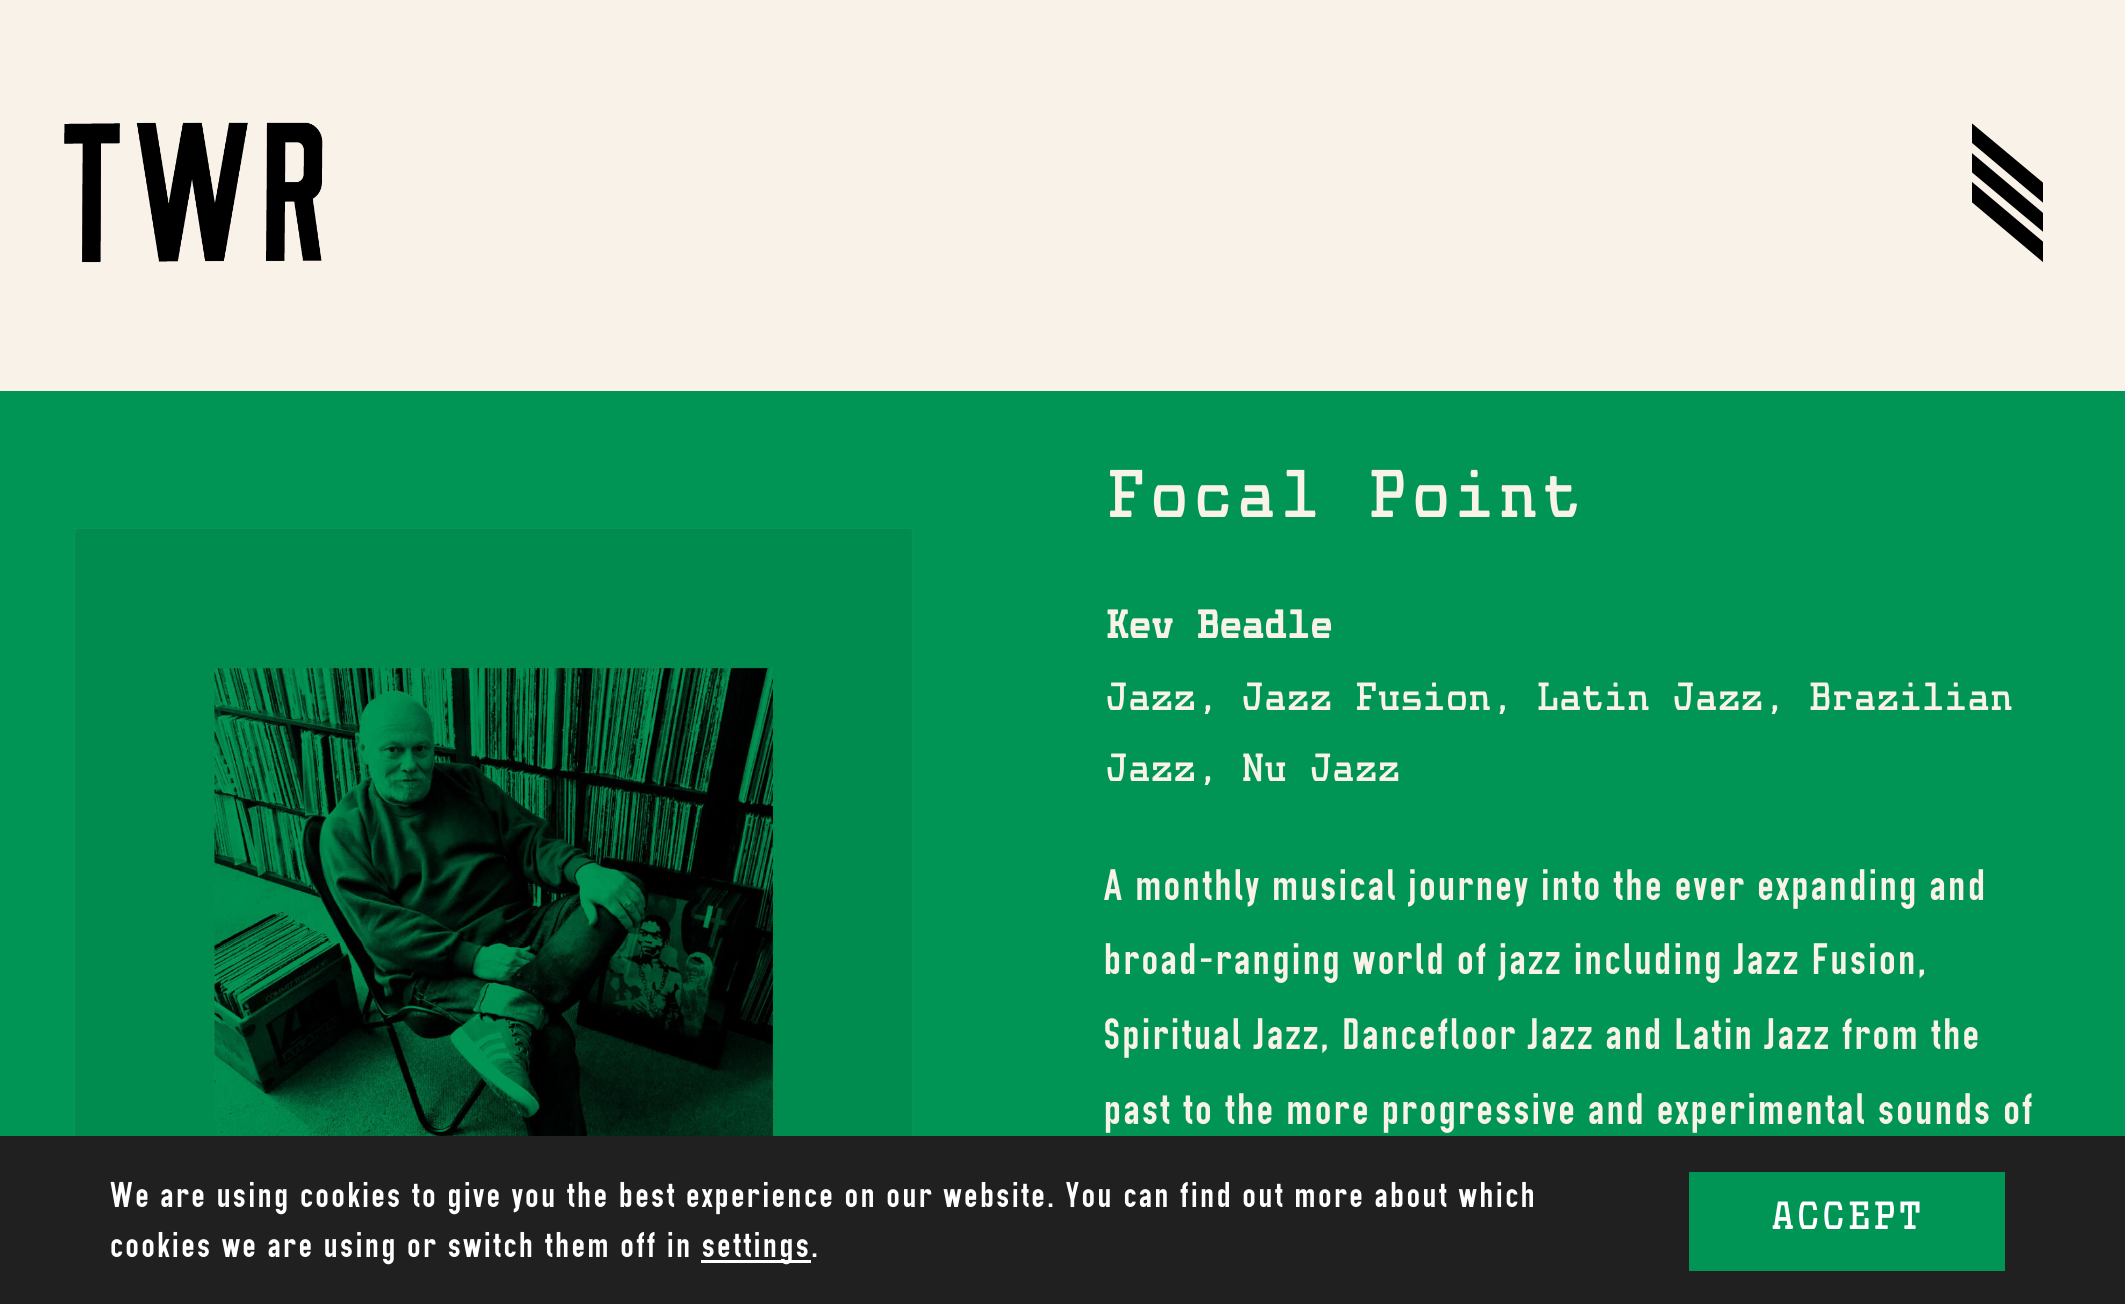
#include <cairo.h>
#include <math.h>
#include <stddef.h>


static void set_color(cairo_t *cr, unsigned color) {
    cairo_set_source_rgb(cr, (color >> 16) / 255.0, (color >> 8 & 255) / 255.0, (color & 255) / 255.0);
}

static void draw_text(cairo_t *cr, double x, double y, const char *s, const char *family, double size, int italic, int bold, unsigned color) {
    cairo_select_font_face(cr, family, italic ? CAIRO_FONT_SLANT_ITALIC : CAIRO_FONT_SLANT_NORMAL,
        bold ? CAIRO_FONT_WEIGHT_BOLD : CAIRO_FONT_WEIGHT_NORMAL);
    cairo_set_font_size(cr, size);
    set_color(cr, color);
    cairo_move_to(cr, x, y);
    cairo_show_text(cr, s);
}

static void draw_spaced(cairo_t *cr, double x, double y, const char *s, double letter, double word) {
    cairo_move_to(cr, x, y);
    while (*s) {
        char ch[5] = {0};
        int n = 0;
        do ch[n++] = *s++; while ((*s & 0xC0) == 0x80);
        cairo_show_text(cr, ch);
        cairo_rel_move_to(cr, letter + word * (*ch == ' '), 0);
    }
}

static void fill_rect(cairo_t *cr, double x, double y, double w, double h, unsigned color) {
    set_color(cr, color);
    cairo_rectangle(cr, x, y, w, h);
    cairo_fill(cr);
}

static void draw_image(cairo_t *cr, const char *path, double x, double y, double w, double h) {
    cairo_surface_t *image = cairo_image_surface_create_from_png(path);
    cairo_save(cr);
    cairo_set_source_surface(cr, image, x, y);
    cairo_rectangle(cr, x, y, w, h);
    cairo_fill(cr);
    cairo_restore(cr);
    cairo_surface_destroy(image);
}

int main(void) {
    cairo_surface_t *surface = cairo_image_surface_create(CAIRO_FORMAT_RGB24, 2125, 1304);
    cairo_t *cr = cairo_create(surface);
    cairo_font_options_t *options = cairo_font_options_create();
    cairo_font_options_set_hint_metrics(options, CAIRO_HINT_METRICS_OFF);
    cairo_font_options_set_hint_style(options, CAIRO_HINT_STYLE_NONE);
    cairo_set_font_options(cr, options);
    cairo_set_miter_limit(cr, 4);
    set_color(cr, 0x009554);
    cairo_paint(cr);
    fill_rect(cr, 0, 0, 2125, 391, 0xF8F2E8);
    cairo_save(cr);
    cairo_rectangle(cr, 1972, 110, 71, 179);
    cairo_clip(cr);
    set_color(cr, 0x000000);
    cairo_new_path(cr);
    cairo_move_to(cr, 1950, 105);
    cairo_line_to(cr, 2108, 237);
    cairo_line_to(cr, 2098, 249);
    cairo_line_to(cr, 1940, 116);
    cairo_close_path(cr);
    cairo_fill(cr);
    cairo_new_path(cr);
    cairo_move_to(cr, 1935, 122);
    cairo_line_to(cr, 2093, 255);
    cairo_line_to(cr, 2084, 266);
    cairo_line_to(cr, 1926, 134);
    cairo_close_path(cr);
    cairo_fill(cr);
    cairo_new_path(cr);
    cairo_move_to(cr, 1921, 139);
    cairo_line_to(cr, 2079, 272);
    cairo_line_to(cr, 2069, 284);
    cairo_line_to(cr, 1911, 151);
    cairo_close_path(cr);
    cairo_fill(cr);
    cairo_restore(cr);
    draw_image(cr, "assets/img1.png", 64, 122, 259, 141);
    draw_image(cr, "assets/img2.png", 74, 528, 839, 608);
    draw_text(cr, 1104, 517, "Focal Point", "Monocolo", 66, 0, 0, 0xF8F2E8);
    cairo_select_font_face(cr, "Monocolo", CAIRO_FONT_SLANT_NORMAL, CAIRO_FONT_WEIGHT_BOLD);
    cairo_set_font_size(cr, 38.5);
    draw_spaced(cr, 1104, 638, "Kev Beadle", -2.75, 0);
    cairo_select_font_face(cr, "Monocolo", CAIRO_FONT_SLANT_NORMAL, CAIRO_FONT_WEIGHT_NORMAL);
    draw_spaced(cr, 1104, 710, "Jazz, Jazz Fusion, Latin Jazz, Brazilian", -2.75, 0);
    draw_spaced(cr, 1104, 781, "Jazz, Nu Jazz", -2.75, 0);
    cairo_select_font_face(cr, "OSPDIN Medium", CAIRO_FONT_SLANT_NORMAL, CAIRO_FONT_WEIGHT_NORMAL);
    cairo_set_font_size(cr, 44);
    draw_spaced(cr, 1104, 900, "A monthly musical journey into the ever expanding and", 2.75, 0);
    draw_spaced(cr, 1104, 974, "broad-ranging world of jazz including Jazz Fusion,", 2.75, 0);
    draw_spaced(cr, 1104, 1049, "Spiritual Jazz, Dancefloor Jazz and Latin Jazz from the", 2.75, 0);
    draw_spaced(cr, 1104, 1124, "past to the more progressive and experimental sounds of", 2.75, 0);
    fill_rect(cr, 0, 1136, 2125, 168, 0x202020);
    cairo_set_font_size(cr, 35.75);
    set_color(cr, 0xFFFFFF);
    draw_spaced(cr, 110, 1207, "We are using cookies to give you the best experience on our website. You can find out more about which", 2.75, 0);
    draw_spaced(cr, 110, 1257, "cookies we are using or switch them off in", 2.75, 0);
    fill_rect(cr, 701, 1260, 110, 3, 0xFFFFFF);
    draw_spaced(cr, 702, 1257, "settings.", 2.75, 0);
    fill_rect(cr, 1689, 1172, 316, 99, 0x009554);
    draw_text(cr, 1770, 1229, "ACCEPT", "Monocolo", 38.5, 0, 0, 0xFFFFFF);
    cairo_surface_write_to_png(surface, "output.png");
    cairo_font_options_destroy(options);
    cairo_destroy(cr);
    cairo_surface_destroy(surface);
    return 0;
}
